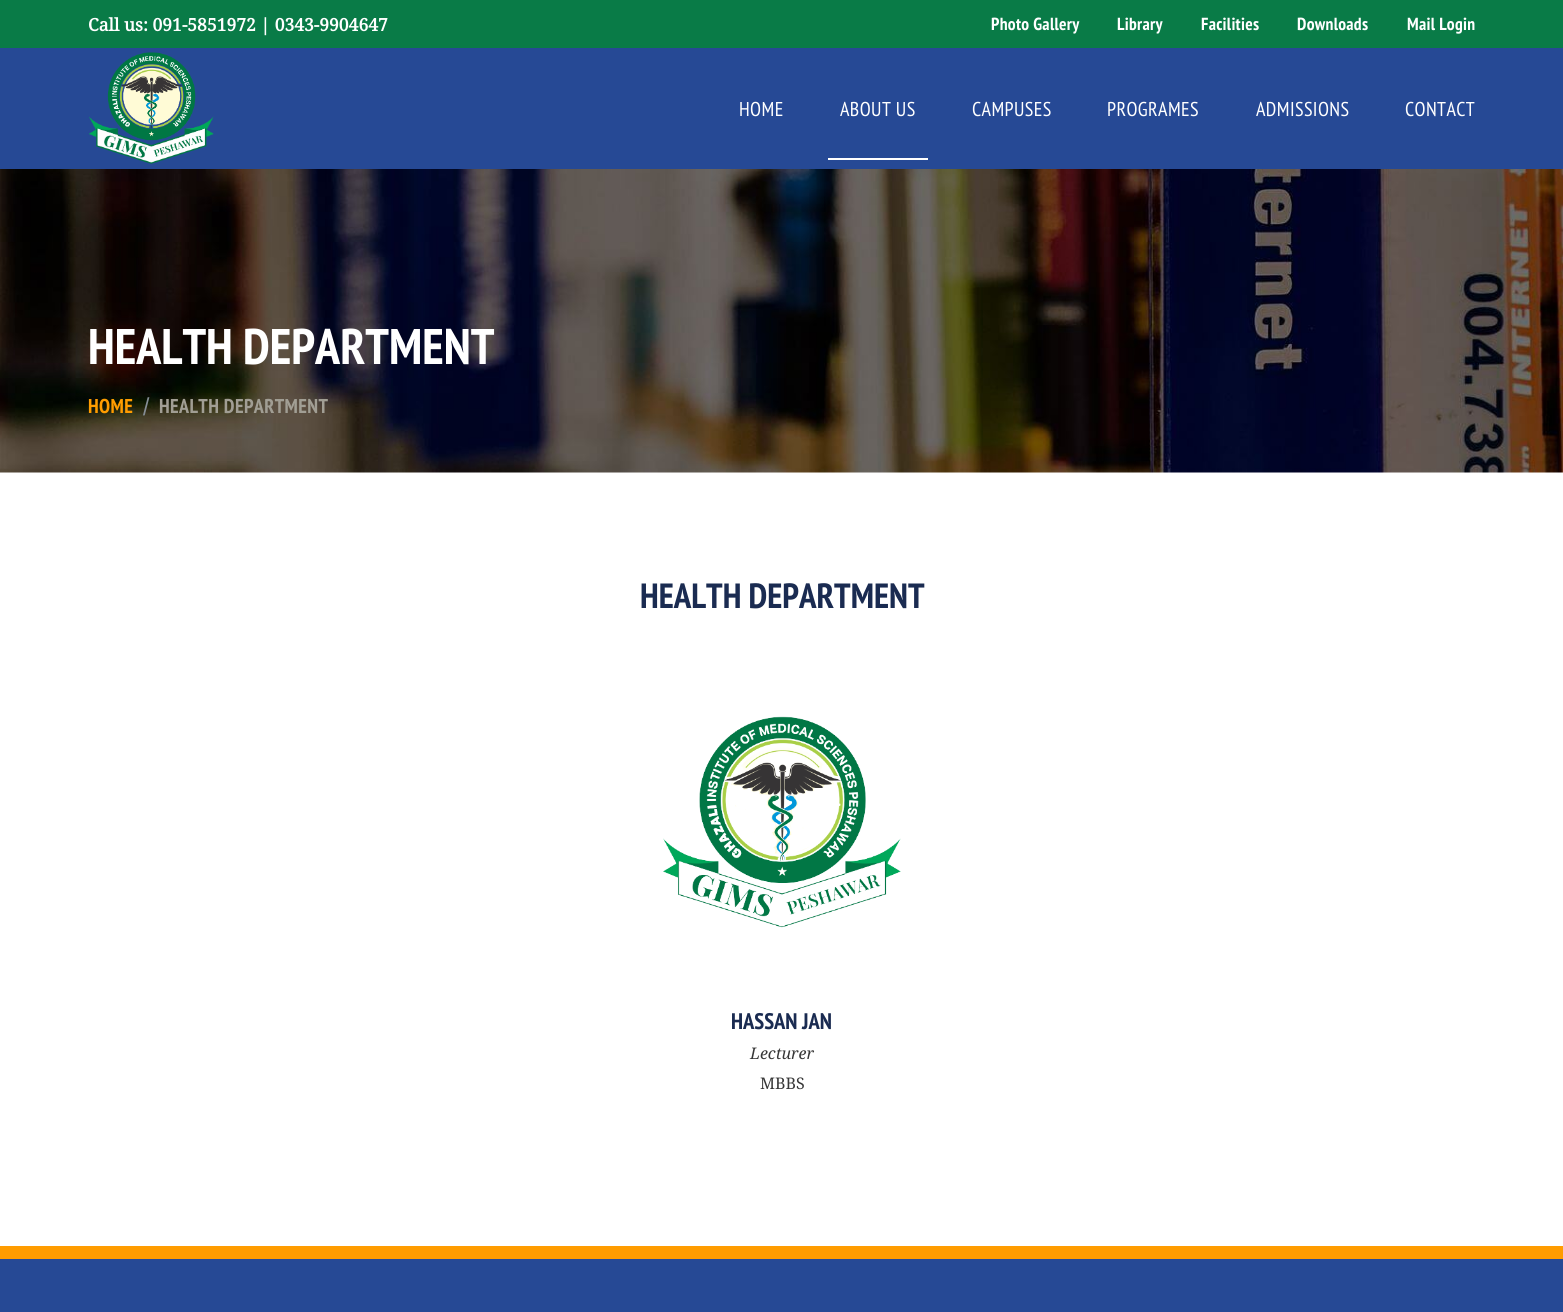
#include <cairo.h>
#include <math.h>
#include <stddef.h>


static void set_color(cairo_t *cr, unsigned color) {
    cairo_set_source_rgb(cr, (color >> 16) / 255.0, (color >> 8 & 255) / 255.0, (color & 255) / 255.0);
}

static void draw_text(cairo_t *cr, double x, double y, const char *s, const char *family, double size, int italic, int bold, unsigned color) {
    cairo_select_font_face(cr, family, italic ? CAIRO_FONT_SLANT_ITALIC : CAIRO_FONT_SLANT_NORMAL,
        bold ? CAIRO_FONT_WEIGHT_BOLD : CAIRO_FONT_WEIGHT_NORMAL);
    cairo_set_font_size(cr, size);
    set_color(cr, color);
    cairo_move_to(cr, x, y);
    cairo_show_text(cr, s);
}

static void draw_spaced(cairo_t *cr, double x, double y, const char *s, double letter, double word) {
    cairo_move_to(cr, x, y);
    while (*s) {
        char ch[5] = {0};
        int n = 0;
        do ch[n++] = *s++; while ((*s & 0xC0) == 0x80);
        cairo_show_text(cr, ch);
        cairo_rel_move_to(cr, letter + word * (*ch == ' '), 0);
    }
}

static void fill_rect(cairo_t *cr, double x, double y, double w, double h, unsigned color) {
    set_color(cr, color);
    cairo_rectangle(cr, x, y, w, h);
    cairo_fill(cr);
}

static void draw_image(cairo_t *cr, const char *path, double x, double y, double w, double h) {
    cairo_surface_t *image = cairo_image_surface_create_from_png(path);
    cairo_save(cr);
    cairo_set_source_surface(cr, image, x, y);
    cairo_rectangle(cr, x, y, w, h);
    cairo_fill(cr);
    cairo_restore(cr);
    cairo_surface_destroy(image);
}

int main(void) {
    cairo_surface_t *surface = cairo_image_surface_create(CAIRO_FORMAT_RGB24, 1563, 1312);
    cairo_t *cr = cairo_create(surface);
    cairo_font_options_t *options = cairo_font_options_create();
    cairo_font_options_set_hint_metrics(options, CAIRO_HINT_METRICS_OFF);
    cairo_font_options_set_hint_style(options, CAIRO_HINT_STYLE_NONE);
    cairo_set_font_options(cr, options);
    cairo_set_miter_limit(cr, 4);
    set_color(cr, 0xFFFFFF);
    cairo_paint(cr);
    fill_rect(cr, 0, 48, 1563, 121, 0x264995);
    fill_rect(cr, 0, 0, 1563, 48, 0x097B47);
    draw_text(cr, 88, 31, "Call us: 091-5851972 | 0343-9904647", "Noto Serif", 17.5, 0, 1, 0xFFFFFF);
    cairo_select_font_face(cr, "PT Sans Narrow", CAIRO_FONT_SLANT_NORMAL, CAIRO_FONT_WEIGHT_BOLD);
    draw_spaced(cr, 991, 30, "Photo Gallery", 0.3, 0);
    draw_spaced(cr, 1117, 30, "Library", 0.3, 0);
    draw_spaced(cr, 1201, 30, "Facilities", 0.3, 0);
    draw_spaced(cr, 1297, 30, "Downloads", 0.3, 0);
    draw_spaced(cr, 1407, 30, "Mail Login", 0.3, 0);
    draw_image(cr, "assets/img1.png", 89, 52, 125, 112);
    cairo_select_font_face(cr, "PT Sans Narrow", CAIRO_FONT_SLANT_NORMAL, CAIRO_FONT_WEIGHT_NORMAL);
    cairo_set_font_size(cr, 20);
    draw_spaced(cr, 739, 116, "HOME", 0.4, 0);
    draw_spaced(cr, 840, 116, "ABOUT US", 0.4, 0);
    fill_rect(cr, 828, 158, 100, 2, 0xFFFFFF);
    draw_spaced(cr, 972, 116, "CAMPUSES", 0.4, 0);
    draw_spaced(cr, 1107, 116, "PROGRAMES", 0.4, 0);
    draw_spaced(cr, 1256, 116, "ADMISSIONS", 0.4, 0);
    draw_spaced(cr, 1405, 116, "CONTACT", 0.4, 0);
    draw_image(cr, "assets/img2.png", 0, 169, 1563, 304);
    draw_text(cr, 88, 364, "HEALTH DEPARTMENT", "PT Sans Narrow", 50, 0, 1, 0xFFFFFF);
    cairo_set_font_size(cr, 20);
    set_color(cr, 0xFF9C00);
    draw_spaced(cr, 88, 413, "HOME", 0.4, 0);
    draw_text(cr, 143, 413, "/", "Noto Serif", 20, 0, 1, 0x868E96);
    cairo_select_font_face(cr, "PT Sans Narrow", CAIRO_FONT_SLANT_NORMAL, CAIRO_FONT_WEIGHT_BOLD);
    set_color(cr, 0xA19E94);
    draw_spaced(cr, 159, 413, "HEALTH DEPARTMENT", 0.4, 0);
    draw_text(cr, 640, 608, "HEALTH DEPARTMENT", "PT Sans Narrow", 35, 0, 1, 0x1A2B51);
    draw_image(cr, "assets/img3.png", 663, 716, 238, 212);
    draw_text(cr, 731, 1029, "HASSAN JAN", "PT Sans Narrow", 22.5, 0, 1, 0x1A2B51);
    draw_text(cr, 750, 1059, "Lecturer", "Noto Serif", 16, 1, 0, 0x373737);
    draw_text(cr, 760, 1089, "MBBS", "Noto Serif", 16, 0, 0, 0x373737);
    fill_rect(cr, 0, 1259, 1563, 53, 0x264995);
    fill_rect(cr, 0, 1246, 1563, 13, 0xFF9C00);
    cairo_surface_write_to_png(surface, "output.png");
    cairo_font_options_destroy(options);
    cairo_destroy(cr);
    cairo_surface_destroy(surface);
    return 0;
}
